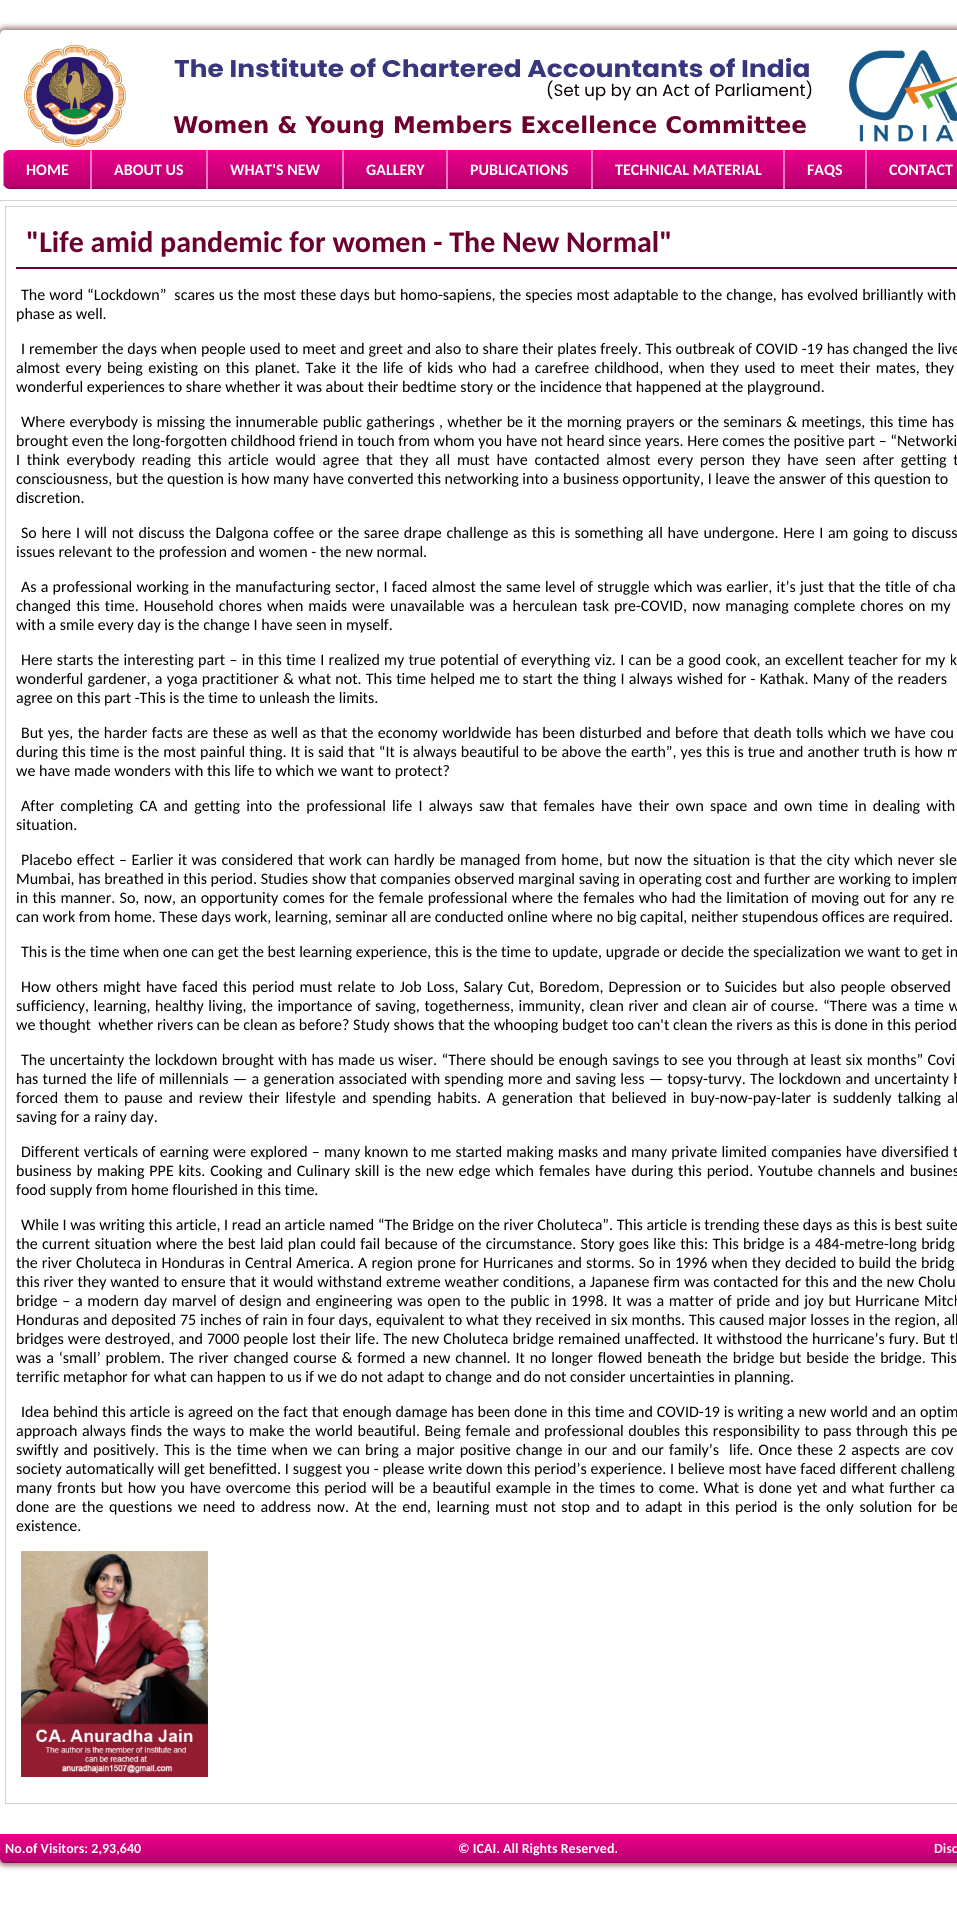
#include <cairo.h>
#include <math.h>
#include <stddef.h>


static void set_color(cairo_t *cr, unsigned color) {
    cairo_set_source_rgb(cr, (color >> 16) / 255.0, (color >> 8 & 255) / 255.0, (color & 255) / 255.0);
}

static void draw_text(cairo_t *cr, double x, double y, const char *s, const char *family, double size, int italic, int bold, unsigned color) {
    cairo_select_font_face(cr, family, italic ? CAIRO_FONT_SLANT_ITALIC : CAIRO_FONT_SLANT_NORMAL,
        bold ? CAIRO_FONT_WEIGHT_BOLD : CAIRO_FONT_WEIGHT_NORMAL);
    cairo_set_font_size(cr, size);
    set_color(cr, color);
    cairo_move_to(cr, x, y);
    cairo_show_text(cr, s);
}

static void draw_spaced(cairo_t *cr, double x, double y, const char *s, double letter, double word) {
    cairo_move_to(cr, x, y);
    while (*s) {
        char ch[5] = {0};
        int n = 0;
        do ch[n++] = *s++; while ((*s & 0xC0) == 0x80);
        cairo_show_text(cr, ch);
        cairo_rel_move_to(cr, letter + word * (*ch == ' '), 0);
    }
}

static void fill_rect(cairo_t *cr, double x, double y, double w, double h, unsigned color) {
    set_color(cr, color);
    cairo_rectangle(cr, x, y, w, h);
    cairo_fill(cr);
}

static void rounded_rect(cairo_t *cr, double x, double y, double w, double h, double r) {
    cairo_new_sub_path(cr);
    cairo_arc(cr, x + w - r, y + h - r, r, 0, M_PI / 2);
    cairo_arc(cr, x + r, y + h - r, r, M_PI / 2, M_PI);
    cairo_arc(cr, x + r, y + r, r, M_PI, 1.5 * M_PI);
    cairo_arc(cr, x + w - r, y + r, r, 1.5 * M_PI, 2 * M_PI);
    cairo_close_path(cr);
}

static void draw_shadow(cairo_t *cr, double x, double y, double w, double h, double r, double blur, double alpha) {
    cairo_push_group_with_content(cr, CAIRO_CONTENT_ALPHA);
    cairo_set_operator(cr, CAIRO_OPERATOR_SOURCE);
    for (int i = 15; i >= -15 && fmin(w, h) + blur * i / 3 > 0; i -= 2) {
        double e = blur * i / 6;
        cairo_set_source_rgba(cr, 0, 0, 0, alpha * erfc((i - 1) / 8.5) / 2);
        rounded_rect(cr, x - e, y - e, w + 2 * e, h + 2 * e, fmax(0, fmin(r + e + blur * .6, fmin(w, h) / 2 + e)));
        cairo_fill(cr);
    }
    cairo_pattern_t *soft = cairo_pop_group(cr);
    cairo_mask(cr, soft);
    cairo_pattern_destroy(soft);
}

static void draw_image(cairo_t *cr, const char *path, double x, double y, double w, double h) {
    cairo_surface_t *image = cairo_image_surface_create_from_png(path);
    cairo_save(cr);
    cairo_set_source_surface(cr, image, x, y);
    cairo_rectangle(cr, x, y, w, h);
    cairo_fill(cr);
    cairo_restore(cr);
    cairo_surface_destroy(image);
}

int main(void) {
    cairo_surface_t *surface = cairo_image_surface_create(CAIRO_FORMAT_RGB24, 957, 1919);
    cairo_t *cr = cairo_create(surface);
    cairo_font_options_t *options = cairo_font_options_create();
    cairo_font_options_set_hint_metrics(options, CAIRO_HINT_METRICS_OFF);
    cairo_font_options_set_hint_style(options, CAIRO_HINT_STYLE_NONE);
    cairo_set_font_options(cr, options);
    cairo_set_miter_limit(cr, 4);
    cairo_pattern_t *gradient;
    set_color(cr, 0xFFFFFF);
    cairo_paint(cr);
    set_color(cr, 0xAA8888);
    draw_shadow(cr, -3, 27, 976, 1839, 8, 2.5, 1);
    set_color(cr, 0xFFFFFF);
    rounded_rect(cr, 0, 30, 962, 1833, 5);
    cairo_fill(cr);
    fill_rect(cr, 0, 200, 957, 1, 0xD2D2D2);
    draw_image(cr, "assets/img1.png", 24, 44, 933, 103);
    gradient = cairo_pattern_create_linear(47, 150, 47, 189);
    cairo_pattern_add_color_stop_rgba(gradient, 0, 0.925, 0, 0.549, 1);
    cairo_pattern_add_color_stop_rgba(gradient, 0.94, 0.722, 0, 0.427, 1);
    cairo_pattern_add_color_stop_rgba(gradient, 1, 0.533, 0, 0.318, 1);
    cairo_set_source(cr, gradient);
    cairo_pattern_destroy(gradient);
    cairo_new_path(cr);
    cairo_move_to(cr, 10, 150);
    cairo_line_to(cr, 91, 150);
    cairo_line_to(cr, 91, 189);
    cairo_line_to(cr, 10, 189);
    cairo_curve_to(cr, 6, 189, 3, 186, 3, 182);
    cairo_line_to(cr, 3, 157);
    cairo_curve_to(cr, 3, 153, 6, 150, 10, 150);
    cairo_close_path(cr);
    cairo_fill(cr);
    draw_text(cr, 26, 175, "HOME", "Carlito", 16, 0, 1, 0xFFFFFF);
    fill_rect(cr, 90, 150, 2, 39, 0xFB75C7);
    fill_rect(cr, 3, 154, 1, 32, 0xFB75C7);
    gradient = cairo_pattern_create_linear(149, 150, 149, 189);
    cairo_pattern_add_color_stop_rgba(gradient, 0, 0.925, 0, 0.549, 1);
    cairo_pattern_add_color_stop_rgba(gradient, 0.94, 0.722, 0, 0.427, 1);
    cairo_pattern_add_color_stop_rgba(gradient, 1, 0.533, 0, 0.318, 1);
    cairo_set_source(cr, gradient);
    cairo_pattern_destroy(gradient);
    cairo_rectangle(cr, 92, 150, 114, 39);
    cairo_fill(cr);
    draw_text(cr, 114, 175, "ABOUT US", "Carlito", 16, 0, 1, 0xFFFFFF);
    fill_rect(cr, 206, 150, 2, 39, 0xFB75C7);
    gradient = cairo_pattern_create_linear(275, 150, 275, 189);
    cairo_pattern_add_color_stop_rgba(gradient, 0, 0.925, 0, 0.549, 1);
    cairo_pattern_add_color_stop_rgba(gradient, 0.94, 0.722, 0, 0.427, 1);
    cairo_pattern_add_color_stop_rgba(gradient, 1, 0.533, 0, 0.318, 1);
    cairo_set_source(cr, gradient);
    cairo_pattern_destroy(gradient);
    cairo_rectangle(cr, 208, 150, 134, 39);
    cairo_fill(cr);
    draw_text(cr, 230, 175, "WHAT'S NEW", "Carlito", 16, 0, 1, 0xFFFFFF);
    fill_rect(cr, 342, 150, 2, 39, 0xFB75C7);
    gradient = cairo_pattern_create_linear(395, 150, 395, 189);
    cairo_pattern_add_color_stop_rgba(gradient, 0, 0.925, 0, 0.549, 1);
    cairo_pattern_add_color_stop_rgba(gradient, 0.94, 0.722, 0, 0.427, 1);
    cairo_pattern_add_color_stop_rgba(gradient, 1, 0.533, 0, 0.318, 1);
    cairo_set_source(cr, gradient);
    cairo_pattern_destroy(gradient);
    cairo_rectangle(cr, 344, 150, 102, 39);
    cairo_fill(cr);
    draw_text(cr, 366, 175, "GALLERY", "Carlito", 16, 0, 1, 0xFFFFFF);
    fill_rect(cr, 446, 150, 2, 39, 0xFB75C7);
    gradient = cairo_pattern_create_linear(520, 150, 520, 189);
    cairo_pattern_add_color_stop_rgba(gradient, 0, 0.925, 0, 0.549, 1);
    cairo_pattern_add_color_stop_rgba(gradient, 0.94, 0.722, 0, 0.427, 1);
    cairo_pattern_add_color_stop_rgba(gradient, 1, 0.533, 0, 0.318, 1);
    cairo_set_source(cr, gradient);
    cairo_pattern_destroy(gradient);
    cairo_rectangle(cr, 448, 150, 143, 39);
    cairo_fill(cr);
    draw_text(cr, 470, 175, "PUBLICATIONS", "Carlito", 16, 0, 1, 0xFFFFFF);
    fill_rect(cr, 591, 150, 2, 39, 0xFB75C7);
    gradient = cairo_pattern_create_linear(688, 150, 688, 189);
    cairo_pattern_add_color_stop_rgba(gradient, 0, 0.925, 0, 0.549, 1);
    cairo_pattern_add_color_stop_rgba(gradient, 0.94, 0.722, 0, 0.427, 1);
    cairo_pattern_add_color_stop_rgba(gradient, 1, 0.533, 0, 0.318, 1);
    cairo_set_source(cr, gradient);
    cairo_pattern_destroy(gradient);
    cairo_rectangle(cr, 593, 150, 190, 39);
    cairo_fill(cr);
    draw_text(cr, 615, 175, "TECHNICAL MATERIAL", "Carlito", 16, 0, 1, 0xFFFFFF);
    fill_rect(cr, 783, 150, 2, 39, 0xFB75C7);
    gradient = cairo_pattern_create_linear(825, 150, 825, 189);
    cairo_pattern_add_color_stop_rgba(gradient, 0, 0.925, 0, 0.549, 1);
    cairo_pattern_add_color_stop_rgba(gradient, 0.94, 0.722, 0, 0.427, 1);
    cairo_pattern_add_color_stop_rgba(gradient, 1, 0.533, 0, 0.318, 1);
    cairo_set_source(cr, gradient);
    cairo_pattern_destroy(gradient);
    cairo_rectangle(cr, 785, 150, 80, 39);
    cairo_fill(cr);
    draw_text(cr, 807, 175, "FAQS", "Carlito", 16, 0, 1, 0xFFFFFF);
    fill_rect(cr, 865, 150, 2, 39, 0xFB75C7);
    gradient = cairo_pattern_create_linear(932, 150, 932, 189);
    cairo_pattern_add_color_stop_rgba(gradient, 0, 0.925, 0, 0.549, 1);
    cairo_pattern_add_color_stop_rgba(gradient, 0.94, 0.722, 0, 0.427, 1);
    cairo_pattern_add_color_stop_rgba(gradient, 1, 0.533, 0, 0.318, 1);
    cairo_set_source(cr, gradient);
    cairo_pattern_destroy(gradient);
    cairo_rectangle(cr, 867, 150, 90, 39);
    cairo_fill(cr);
    draw_text(cr, 889, 175, "CONTACT", "Carlito", 16, 0, 1, 0xFFFFFF);
    cairo_rectangle(cr, 5.5, 206.5, 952, 1597);
    set_color(cr, 0xD2D2D2);
    cairo_set_line_width(cr, 1);
    cairo_stroke(cr);
    fill_rect(cr, 16, 267, 941, 2, 0x6C002F);
    draw_text(cr, 26, 252, "\"Life amid pandemic for women - The New Normal\"", "Carlito", 30, 0, 1, 0x6C002F);
    cairo_select_font_face(cr, "Carlito", CAIRO_FONT_SLANT_NORMAL, CAIRO_FONT_WEIGHT_NORMAL);
    cairo_set_font_size(cr, 16);
    set_color(cr, 0x000000);
    draw_spaced(cr, 21, 300, "The word “Lockdown”  scares us the most these days but homo-sapiens, the species most adaptable to the change, has evolved brilliantly with", 0, 0.4);
    draw_text(cr, 16, 319, "phase as well.", "Carlito", 16, 0, 0, 0x000000);
    draw_spaced(cr, 21, 354, "I remember the days when people used to meet and greet and also to share their plates freely. This outbreak of COVID -19 has changed the live", 0, 0.25);
    draw_spaced(cr, 16, 373, "almost every being existing on this planet. Take it the life of kids who had a carefree childhood, when they used to meet their mates, they", 0, 1.75);
    draw_text(cr, 16, 392, "wonderful experiences to share whether it was about their bedtime story or the incidence that happened at the playground.", "Carlito", 16, 0, 0, 0x000000);
    draw_spaced(cr, 21, 427, "Where everybody is missing the innumerable public gatherings , whether be it the morning prayers or the seminars & meetings, this time has", 0, 0.7);
    draw_text(cr, 16, 446, "brought even the long-forgotten childhood friend in touch from whom you have not heard since years. Here comes the positive part – “Networki", "Carlito", 16, 0, 0, 0x000000);
    draw_spaced(cr, 16, 465, "I think everybody reading this article would agree that they all must have contacted almost every person they have seen after getting t", 0, 3.1);
    draw_text(cr, 16, 484, "consciousness, but the question is how many have converted this networking into a business opportunity, I leave the answer of this question to", "Carlito", 16, 0, 0, 0x000000);
    draw_text(cr, 16, 503, "discretion.", "Carlito", 16, 0, 0, 0x000000);
    draw_spaced(cr, 21, 538, "So here I will not discuss the Dalgona coffee or the saree drape challenge as this is something all have undergone. Here I am going to discuss", 0, 1);
    draw_text(cr, 16, 557, "issues relevant to the profession and women - the new normal.", "Carlito", 16, 0, 0, 0x000000);
    draw_spaced(cr, 21, 592, "As a professional working in the manufacturing sector, I faced almost the same level of struggle which was earlier, it’s just that the title of cha", 0, 0.6);
    draw_spaced(cr, 16, 611, "changed this time. Household chores when maids were unavailable was a herculean task pre-COVID, now managing complete chores on my", 0, 1.4);
    draw_text(cr, 16, 630, "with a smile every day is the change I have seen in myself.", "Carlito", 16, 0, 0, 0x000000);
    draw_spaced(cr, 21, 665, "Here starts the interesting part – in this time I realized my true potential of everything viz. I can be a good cook, an excellent teacher for my k", 0, 0.7);
    draw_spaced(cr, 16, 684, "wonderful gardener, a yoga practitioner & what not. This time helped me to start the thing I always wished for - Kathak. Many of the readers", 0, 0.65);
    draw_text(cr, 16, 703, "agree on this part -This is the time to unleash the limits.", "Carlito", 16, 0, 0, 0x000000);
    draw_spaced(cr, 21, 738, "But yes, the harder facts are these as well as that the economy worldwide has been disturbed and before that death tolls which we have cou", 0, 0.75);
    draw_spaced(cr, 16, 757, "during this time is the most painful thing. It is said that “It is always beautiful to be above the earth”, yes this is true and another truth is how m", 0, 0.4);
    draw_text(cr, 16, 776, "we have made wonders with this life to which we want to protect?", "Carlito", 16, 0, 0, 0x000000);
    draw_spaced(cr, 21, 811, "After completing CA and getting into the professional life I always saw that females have their own space and own time in dealing with", 0, 2.6);
    draw_text(cr, 16, 830, "situation.", "Carlito", 16, 0, 0, 0x000000);
    draw_spaced(cr, 21, 865, "Placebo effect – Earlier it was considered that work can hardly be managed from home, but now the situation is that the city which never sle", 0, 0.9);
    draw_text(cr, 16, 884, "Mumbai, has breathed in this period. Studies show that companies observed marginal saving in operating cost and further are working to implem", "Carlito", 16, 0, 0, 0x000000);
    draw_spaced(cr, 16, 903, "in this manner. So, now, an opportunity comes for the female professional where the females who had the limitation of moving out for any re", 0, 0.7);
    draw_text(cr, 16, 922, "can work from home. These days work, learning, seminar all are conducted online where no big capital, neither stupendous offices are required.", "Carlito", 16, 0, 0, 0x000000);
    draw_text(cr, 21, 957, "This is the time when one can get the best learning experience, this is the time to update, upgrade or decide the specialization we want to get in", "Carlito", 16, 0, 0, 0x000000);
    draw_spaced(cr, 21, 992, "How others might have faced this period must relate to Job Loss, Salary Cut, Boredom, Depression or to Suicides but also people observed", 0, 1.5);
    draw_spaced(cr, 16, 1011, "sufficiency, learning, healthy living, the importance of saving, togetherness, immunity, clean river and clean air of course. “There was a time w", 0, 1);
    draw_text(cr, 16, 1030, "we thought  whether rivers can be clean as before? Study shows that the whooping budget too can't clean the rivers as this is done in this period", "Carlito", 16, 0, 0, 0x000000);
    draw_spaced(cr, 21, 1065, "The uncertainty the lockdown brought with has made us wiser. “There should be enough savings to see you through at least six months” Covi", 0, 0.7);
    draw_spaced(cr, 16, 1084, "has turned the life of millennials — a generation associated with spending more and saving less — topsy-turvy. The lockdown and uncertainty h", 0, 0.6);
    draw_spaced(cr, 16, 1103, "forced them to pause and review their lifestyle and spending habits. A generation that believed in buy-now-pay-later is suddenly talking ab", 0, 2.25);
    draw_text(cr, 16, 1122, "saving for a rainy day.", "Carlito", 16, 0, 0, 0x000000);
    draw_spaced(cr, 21, 1157, "Different verticals of earning were explored – many known to me started making masks and many private limited companies have diversified t", 0, 0.6);
    draw_spaced(cr, 16, 1176, "business by making PPE kits. Cooking and Culinary skill is the new edge which females have during this period. Youtube channels and busines", 0, 1.3);
    draw_text(cr, 16, 1195, "food supply from home flourished in this time.", "Carlito", 16, 0, 0, 0x000000);
    draw_text(cr, 21, 1230, "While I was writing this article, I read an article named “The Bridge on the river Choluteca”. This article is trending these days as this is best suite", "Carlito", 16, 0, 0, 0x000000);
    draw_spaced(cr, 16, 1249, "the current situation where the best laid plan could fail because of the circumstance. Story goes like this: This bridge is a 484-metre-long bridg", 0, 0.7);
    draw_spaced(cr, 16, 1268, "the river Choluteca in Honduras in Central America. A region prone for Hurricanes and storms. So in 1996 when they decided to build the bridg", 0, 0.5);
    draw_spaced(cr, 16, 1287, "this river they wanted to ensure that it would withstand extreme weather conditions, a Japanese firm was contacted for this and the new Cholu", 0, 0.25);
    draw_spaced(cr, 16, 1306, "bridge – a modern day marvel of design and engineering was open to the public in 1998. It was a matter of pride and joy but Hurricane Mitch", 0, 1.1);
    draw_spaced(cr, 16, 1325, "Honduras and deposited 75 inches of rain in four days, equivalent to what they received in six months. This caused major losses in the region, all", 0, 0.2);
    draw_spaced(cr, 16, 1344, "bridges were destroyed, and 7000 people lost their life. The new Choluteca bridge remained unaffected. It withstood the hurricane’s fury. But th", 0, 0.4);
    draw_spaced(cr, 16, 1363, "was a ‘small’ problem. The river changed course & formed a new channel. It no longer flowed beneath the bridge but beside the bridge. This", 0, 1.2);
    draw_text(cr, 16, 1382, "terrific metaphor for what can happen to us if we do not adapt to change and do not consider uncertainties in planning.", "Carlito", 16, 0, 0, 0x000000);
    draw_spaced(cr, 21, 1417, "Idea behind this article is agreed on the fact that enough damage has been done in this time and COVID-19 is writing a new world and an optim", 0, 0.25);
    draw_spaced(cr, 16, 1436, "approach always finds the ways to make the world beautiful. Being female and professional doubles this responsibility to pass through this pe", 0, 1);
    draw_spaced(cr, 16, 1455, "swiftly and positively. This is the time when we can bring a major positive change in our and our family’s  life. Once these 2 aspects are cov", 0, 1.4);
    draw_spaced(cr, 16, 1474, "society automatically will get benefitted. I suggest you - please write down this period’s experience. I believe most have faced different challeng", 0, 0.2);
    draw_spaced(cr, 16, 1493, "many fronts but how you have overcome this period will be a beautiful example in the times to come. What is done yet and what further ca", 0, 1.2);
    draw_spaced(cr, 16, 1512, "done are the questions we need to address now. At the end, learning must not stop and to adapt in this period is the only solution for be", 0, 2);
    draw_text(cr, 16, 1531, "existence.", "Carlito", 16, 0, 0, 0x000000);
    draw_image(cr, "assets/img2.png", 21, 1551, 187, 226);
    gradient = cairo_pattern_create_linear(500, 1834, 500, 1863);
    cairo_pattern_add_color_stop_rgba(gradient, 0, 0.925, 0, 0.549, 1);
    cairo_pattern_add_color_stop_rgba(gradient, 0.94, 0.722, 0, 0.427, 1);
    cairo_pattern_add_color_stop_rgba(gradient, 1, 0.533, 0, 0.318, 1);
    cairo_set_source(cr, gradient);
    cairo_pattern_destroy(gradient);
    cairo_new_path(cr);
    cairo_move_to(cr, 0, 1834);
    cairo_line_to(cr, 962, 1834);
    cairo_line_to(cr, 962, 1858);
    cairo_curve_to(cr, 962, 1861, 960, 1863, 957, 1863);
    cairo_line_to(cr, 5, 1863);
    cairo_curve_to(cr, 2, 1863, 0, 1861, 0, 1858);
    cairo_close_path(cr);
    cairo_fill(cr);
    draw_text(cr, 5, 1853, "No.of Visitors: 2,93,640", "Carlito", 14, 0, 1, 0xFFFFFF);
    draw_text(cr, 458, 1853, "© ICAI. All Rights Reserved.", "Carlito", 14, 0, 1, 0xFFFFFF);
    draw_text(cr, 934, 1853, "Disc", "Carlito", 14, 0, 1, 0xEBEBEB);
    cairo_surface_write_to_png(surface, "output.png");
    cairo_font_options_destroy(options);
    cairo_destroy(cr);
    cairo_surface_destroy(surface);
    return 0;
}
